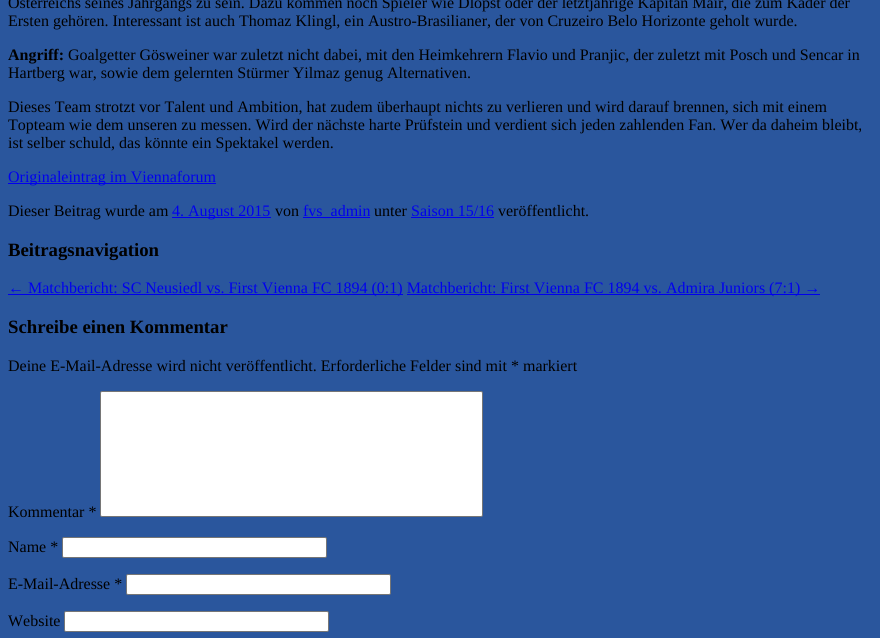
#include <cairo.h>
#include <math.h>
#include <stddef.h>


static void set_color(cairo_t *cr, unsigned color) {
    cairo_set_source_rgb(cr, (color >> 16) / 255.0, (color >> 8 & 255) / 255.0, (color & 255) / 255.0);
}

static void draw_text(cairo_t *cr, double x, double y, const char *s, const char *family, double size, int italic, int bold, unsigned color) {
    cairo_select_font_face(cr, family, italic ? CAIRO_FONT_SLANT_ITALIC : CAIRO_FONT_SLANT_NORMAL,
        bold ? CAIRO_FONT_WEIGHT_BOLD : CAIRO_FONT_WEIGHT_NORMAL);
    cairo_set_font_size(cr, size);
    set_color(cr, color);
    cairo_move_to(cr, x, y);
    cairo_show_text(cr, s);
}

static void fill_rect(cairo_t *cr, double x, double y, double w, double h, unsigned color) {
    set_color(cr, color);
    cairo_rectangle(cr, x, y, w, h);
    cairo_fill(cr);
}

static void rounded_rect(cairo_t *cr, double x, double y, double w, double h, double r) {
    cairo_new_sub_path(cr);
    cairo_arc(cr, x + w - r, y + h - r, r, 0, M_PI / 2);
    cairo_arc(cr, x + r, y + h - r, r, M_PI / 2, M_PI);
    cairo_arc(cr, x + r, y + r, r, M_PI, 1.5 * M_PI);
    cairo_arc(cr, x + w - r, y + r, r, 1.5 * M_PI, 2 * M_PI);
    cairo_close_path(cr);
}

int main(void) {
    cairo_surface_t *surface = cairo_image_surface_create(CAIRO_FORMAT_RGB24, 880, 638);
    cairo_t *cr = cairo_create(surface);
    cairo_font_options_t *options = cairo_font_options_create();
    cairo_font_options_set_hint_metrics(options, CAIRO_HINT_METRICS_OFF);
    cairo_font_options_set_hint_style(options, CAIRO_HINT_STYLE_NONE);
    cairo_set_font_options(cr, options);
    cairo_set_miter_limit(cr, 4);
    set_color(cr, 0x2A569D);
    cairo_paint(cr);
    draw_text(cr, 8, 8, "Österreichs seines Jahrgangs zu sein. Dazu kommen noch Spieler wie Dlopst oder der letztjährige Kapitän Mair, die zum Kader der", "Liberation Serif", 16, 0, 0, 0x000000);
    draw_text(cr, 8, 26, "Ersten gehören. Interessant ist auch Thomaz Klingl, ein Austro-Brasilianer, der von Cruzeiro Belo Horizonte geholt wurde.", "Liberation Serif", 16, 0, 0, 0x000000);
    draw_text(cr, 8, 60, "Angriff:", "Liberation Serif", 16, 0, 1, 0x000000);
    draw_text(cr, 68, 60, "Goalgetter Gösweiner war zuletzt nicht dabei, mit den Heimkehrern Flavio und Pranjic, der zuletzt mit Posch und Sencar in", "Liberation Serif", 16, 0, 0, 0x000000);
    draw_text(cr, 8, 78, "Hartberg war, sowie dem gelernten Stürmer Yilmaz genug Alternativen.", "Liberation Serif", 16, 0, 0, 0x000000);
    draw_text(cr, 8, 112, "Dieses Team strotzt vor Talent und Ambition, hat zudem überhaupt nichts zu verlieren und wird darauf brennen, sich mit einem", "Liberation Serif", 16, 0, 0, 0x000000);
    draw_text(cr, 8, 130, "Topteam wie dem unseren zu messen. Wird der nächste harte Prüfstein und verdient sich jeden zahlenden Fan. Wer da daheim bleibt,", "Liberation Serif", 16, 0, 0, 0x000000);
    draw_text(cr, 8, 148, "ist selber schuld, das könnte ein Spektakel werden.", "Liberation Serif", 16, 0, 0, 0x000000);
    fill_rect(cr, 8, 183, 208, 1, 0x0000EE);
    draw_text(cr, 8, 182, "Originaleintrag im Viennaforum", "Liberation Serif", 16, 0, 0, 0x0000EE);
    draw_text(cr, 8, 216, "Dieser Beitrag wurde am", "Liberation Serif", 16, 0, 0, 0x000000);
    fill_rect(cr, 172, 217, 99, 1, 0x0000EE);
    draw_text(cr, 172, 216, "4. August 2015", "Liberation Serif", 16, 0, 0, 0x0000EE);
    draw_text(cr, 275, 216, "von", "Liberation Serif", 16, 0, 0, 0x000000);
    fill_rect(cr, 303, 217, 67, 1, 0x0000EE);
    draw_text(cr, 303, 216, "fvs_admin", "Liberation Serif", 16, 0, 0, 0x0000EE);
    draw_text(cr, 374, 216, "unter", "Liberation Serif", 16, 0, 0, 0x000000);
    draw_text(cr, 411, 216, "Saison 15/16", "Liberation Serif", 16, 0, 0, 0x0000EE);
    fill_rect(cr, 411, 217, 83, 1, 0x0000EE);
    draw_text(cr, 498, 216, "veröffentlicht.", "Liberation Serif", 16, 0, 0, 0x000000);
    draw_text(cr, 8, 256, "Beitragsnavigation", "Liberation Serif", 18.75, 0, 1, 0x000000);
    fill_rect(cr, 8, 294, 395, 1, 0x0000EE);
    draw_text(cr, 8, 293, "← Matchbericht: SC Neusiedl vs. First Vienna FC 1894 (0:1) Matchbericht: First Vienna FC 1894 vs.", "Liberation Serif", 16, 0, 0, 0x0000EE);
    fill_rect(cr, 407, 294, 413, 1, 0x0000EE);
    draw_text(cr, 666, 293, "Admira Juniors (7:1) →", "Liberation Serif", 16, 0, 0, 0x0000EE);
    draw_text(cr, 8, 333, "Schreibe einen Kommentar", "Liberation Serif", 18.75, 0, 1, 0x000000);
    draw_text(cr, 8, 371, "Deine E-Mail-Adresse wird nicht veröffentlicht. Erforderliche Felder sind mit * markiert", "Liberation Serif", 16, 0, 0, 0x000000);
    draw_text(cr, 8, 517, "Kommentar *", "Liberation Serif", 16, 0, 0, 0x000000);
    set_color(cr, 0xFFFFFF);
    rounded_rect(cr, 100.5, 391.5, 382, 125, 1.5);
    cairo_fill_preserve(cr);
    set_color(cr, 0x767676);
    cairo_set_line_width(cr, 1);
    cairo_stroke(cr);
    draw_text(cr, 8, 552, "Name *", "Liberation Serif", 16, 0, 0, 0x000000);
    set_color(cr, 0xFFFFFF);
    rounded_rect(cr, 62.5, 537.5, 264, 20, 1.5);
    cairo_fill_preserve(cr);
    set_color(cr, 0x767676);
    cairo_stroke(cr);
    draw_text(cr, 8, 589, "E-Mail-Adresse *", "Liberation Serif", 16, 0, 0, 0x000000);
    set_color(cr, 0xFFFFFF);
    rounded_rect(cr, 126.5, 574.5, 264, 20, 1.5);
    cairo_fill_preserve(cr);
    set_color(cr, 0x767676);
    cairo_stroke(cr);
    draw_text(cr, 8, 626, "Website", "Liberation Serif", 16, 0, 0, 0x000000);
    set_color(cr, 0xFFFFFF);
    rounded_rect(cr, 64.5, 611.5, 264, 20, 1.5);
    cairo_fill_preserve(cr);
    set_color(cr, 0x767676);
    cairo_stroke(cr);
    cairo_surface_write_to_png(surface, "output.png");
    cairo_font_options_destroy(options);
    cairo_destroy(cr);
    cairo_surface_destroy(surface);
    return 0;
}
